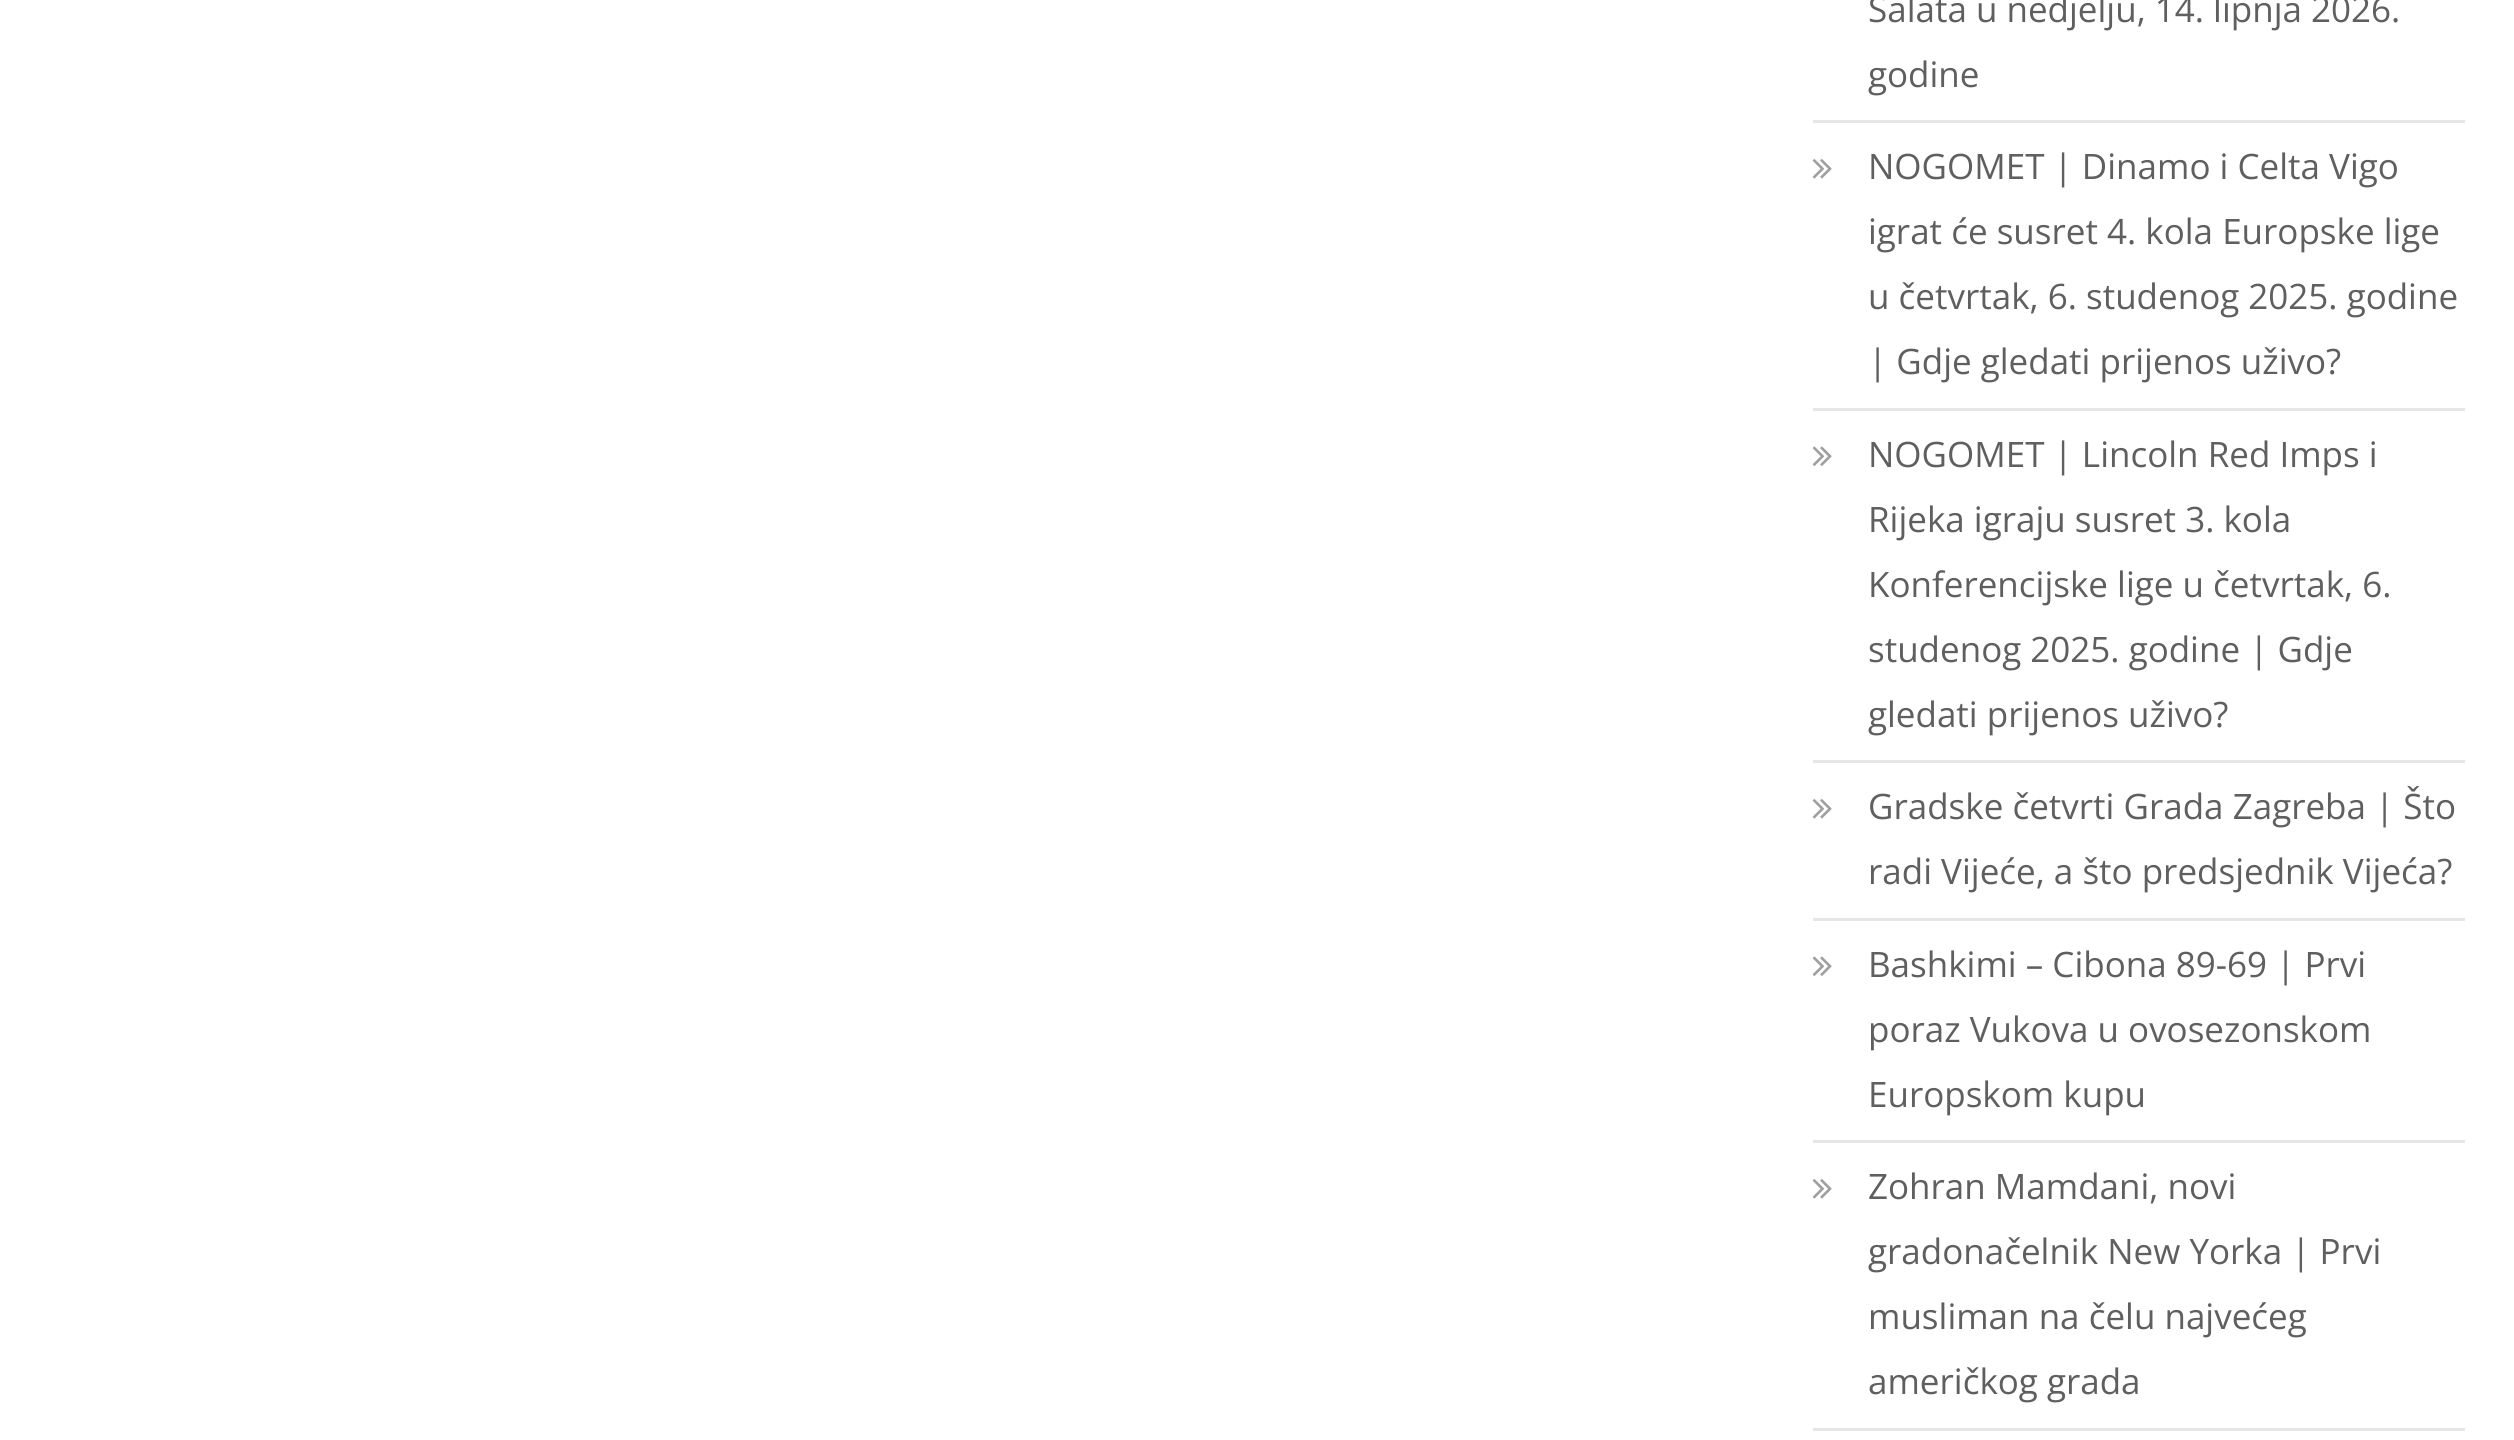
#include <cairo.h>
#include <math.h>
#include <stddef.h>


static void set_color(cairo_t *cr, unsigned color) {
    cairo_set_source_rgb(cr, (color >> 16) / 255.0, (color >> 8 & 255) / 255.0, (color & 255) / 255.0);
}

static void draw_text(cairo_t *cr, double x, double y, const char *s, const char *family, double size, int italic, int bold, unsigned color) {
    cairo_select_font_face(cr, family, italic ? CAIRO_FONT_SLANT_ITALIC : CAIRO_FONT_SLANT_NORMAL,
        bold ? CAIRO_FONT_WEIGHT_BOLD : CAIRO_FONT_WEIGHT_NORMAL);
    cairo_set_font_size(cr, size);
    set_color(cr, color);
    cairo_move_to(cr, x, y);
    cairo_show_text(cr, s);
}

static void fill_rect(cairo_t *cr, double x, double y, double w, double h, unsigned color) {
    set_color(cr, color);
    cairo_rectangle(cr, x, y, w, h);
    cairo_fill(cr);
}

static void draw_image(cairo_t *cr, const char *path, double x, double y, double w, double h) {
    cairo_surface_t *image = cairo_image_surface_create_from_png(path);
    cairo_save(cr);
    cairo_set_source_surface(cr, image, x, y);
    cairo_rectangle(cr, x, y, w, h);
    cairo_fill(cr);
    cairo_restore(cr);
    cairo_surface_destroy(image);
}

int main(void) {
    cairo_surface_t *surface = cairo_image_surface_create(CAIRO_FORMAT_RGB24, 2514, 1440);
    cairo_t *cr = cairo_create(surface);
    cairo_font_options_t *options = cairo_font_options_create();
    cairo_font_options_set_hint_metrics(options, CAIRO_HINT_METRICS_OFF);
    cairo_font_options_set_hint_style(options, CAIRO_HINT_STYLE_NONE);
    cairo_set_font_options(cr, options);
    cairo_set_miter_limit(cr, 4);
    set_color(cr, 0xFFFFFF);
    cairo_paint(cr);
    fill_rect(cr, 1813, 120, 652, 3, 0xE6E6E6);
    draw_text(cr, 1868, 22, "Šalata u nedjelju, 14. lipnja 2026.", "Open Sans", 35, 0, 0, 0x5F5F5F);
    draw_text(cr, 1868, 87, "godine", "Open Sans", 35, 0, 0, 0x5F5F5F);
    fill_rect(cr, 1813, 408, 652, 3, 0xE6E6E6);
    draw_image(cr, "assets/img1.png", 1812, 159, 20, 20);
    draw_text(cr, 1868, 179, "NOGOMET | Dinamo i Celta Vigo", "Open Sans", 35, 0, 0, 0x5F5F5F);
    draw_text(cr, 1868, 244, "igrat će susret 4. kola Europske lige", "Open Sans", 35, 0, 0, 0x5F5F5F);
    draw_text(cr, 1868, 309, "u četvrtak, 6. studenog 2025. godine", "Open Sans", 35, 0, 0, 0x5F5F5F);
    draw_text(cr, 1868, 374, "| Gdje gledati prijenos uživo?", "Open Sans", 35, 0, 0, 0x5F5F5F);
    fill_rect(cr, 1813, 760, 652, 3, 0xE6E6E6);
    draw_image(cr, "assets/img2.png", 1812, 446, 20, 20);
    draw_text(cr, 1868, 467, "NOGOMET | Lincoln Red Imps i", "Open Sans", 35, 0, 0, 0x5F5F5F);
    draw_text(cr, 1868, 532, "Rijeka igraju susret 3. kola", "Open Sans", 35, 0, 0, 0x5F5F5F);
    draw_text(cr, 1868, 597, "Konferencijske lige u četvrtak, 6.", "Open Sans", 35, 0, 0, 0x5F5F5F);
    draw_text(cr, 1868, 662, "studenog 2025. godine | Gdje", "Open Sans", 35, 0, 0, 0x5F5F5F);
    draw_text(cr, 1868, 727, "gledati prijenos uživo?", "Open Sans", 35, 0, 0, 0x5F5F5F);
    fill_rect(cr, 1813, 918, 652, 3, 0xE6E6E6);
    draw_image(cr, "assets/img1.png", 1812, 799, 20, 20);
    draw_text(cr, 1868, 819, "Gradske četvrti Grada Zagreba | Što", "Open Sans", 35, 0, 0, 0x5F5F5F);
    draw_text(cr, 1868, 884, "radi Vijeće, a što predsjednik Vijeća?", "Open Sans", 35, 0, 0, 0x5F5F5F);
    fill_rect(cr, 1813, 1140, 652, 3, 0xE6E6E6);
    draw_image(cr, "assets/img2.png", 1812, 956, 20, 20);
    draw_text(cr, 1868, 977, "Bashkimi – Cibona 89-69 | Prvi", "Open Sans", 35, 0, 0, 0x5F5F5F);
    draw_text(cr, 1868, 1042, "poraz Vukova u ovosezonskom", "Open Sans", 35, 0, 0, 0x5F5F5F);
    draw_text(cr, 1868, 1107, "Europskom kupu", "Open Sans", 35, 0, 0, 0x5F5F5F);
    fill_rect(cr, 1813, 1428, 652, 3, 0xE6E6E6);
    draw_image(cr, "assets/img1.png", 1812, 1179, 20, 20);
    draw_text(cr, 1868, 1199, "Zohran Mamdani, novi", "Open Sans", 35, 0, 0, 0x5F5F5F);
    draw_text(cr, 1868, 1264, "gradonačelnik New Yorka | Prvi", "Open Sans", 35, 0, 0, 0x5F5F5F);
    draw_text(cr, 1868, 1329, "musliman na čelu najvećeg", "Open Sans", 35, 0, 0, 0x5F5F5F);
    draw_text(cr, 1868, 1394, "američkog grada", "Open Sans", 35, 0, 0, 0x5F5F5F);
    cairo_surface_write_to_png(surface, "output.png");
    cairo_font_options_destroy(options);
    cairo_destroy(cr);
    cairo_surface_destroy(surface);
    return 0;
}
